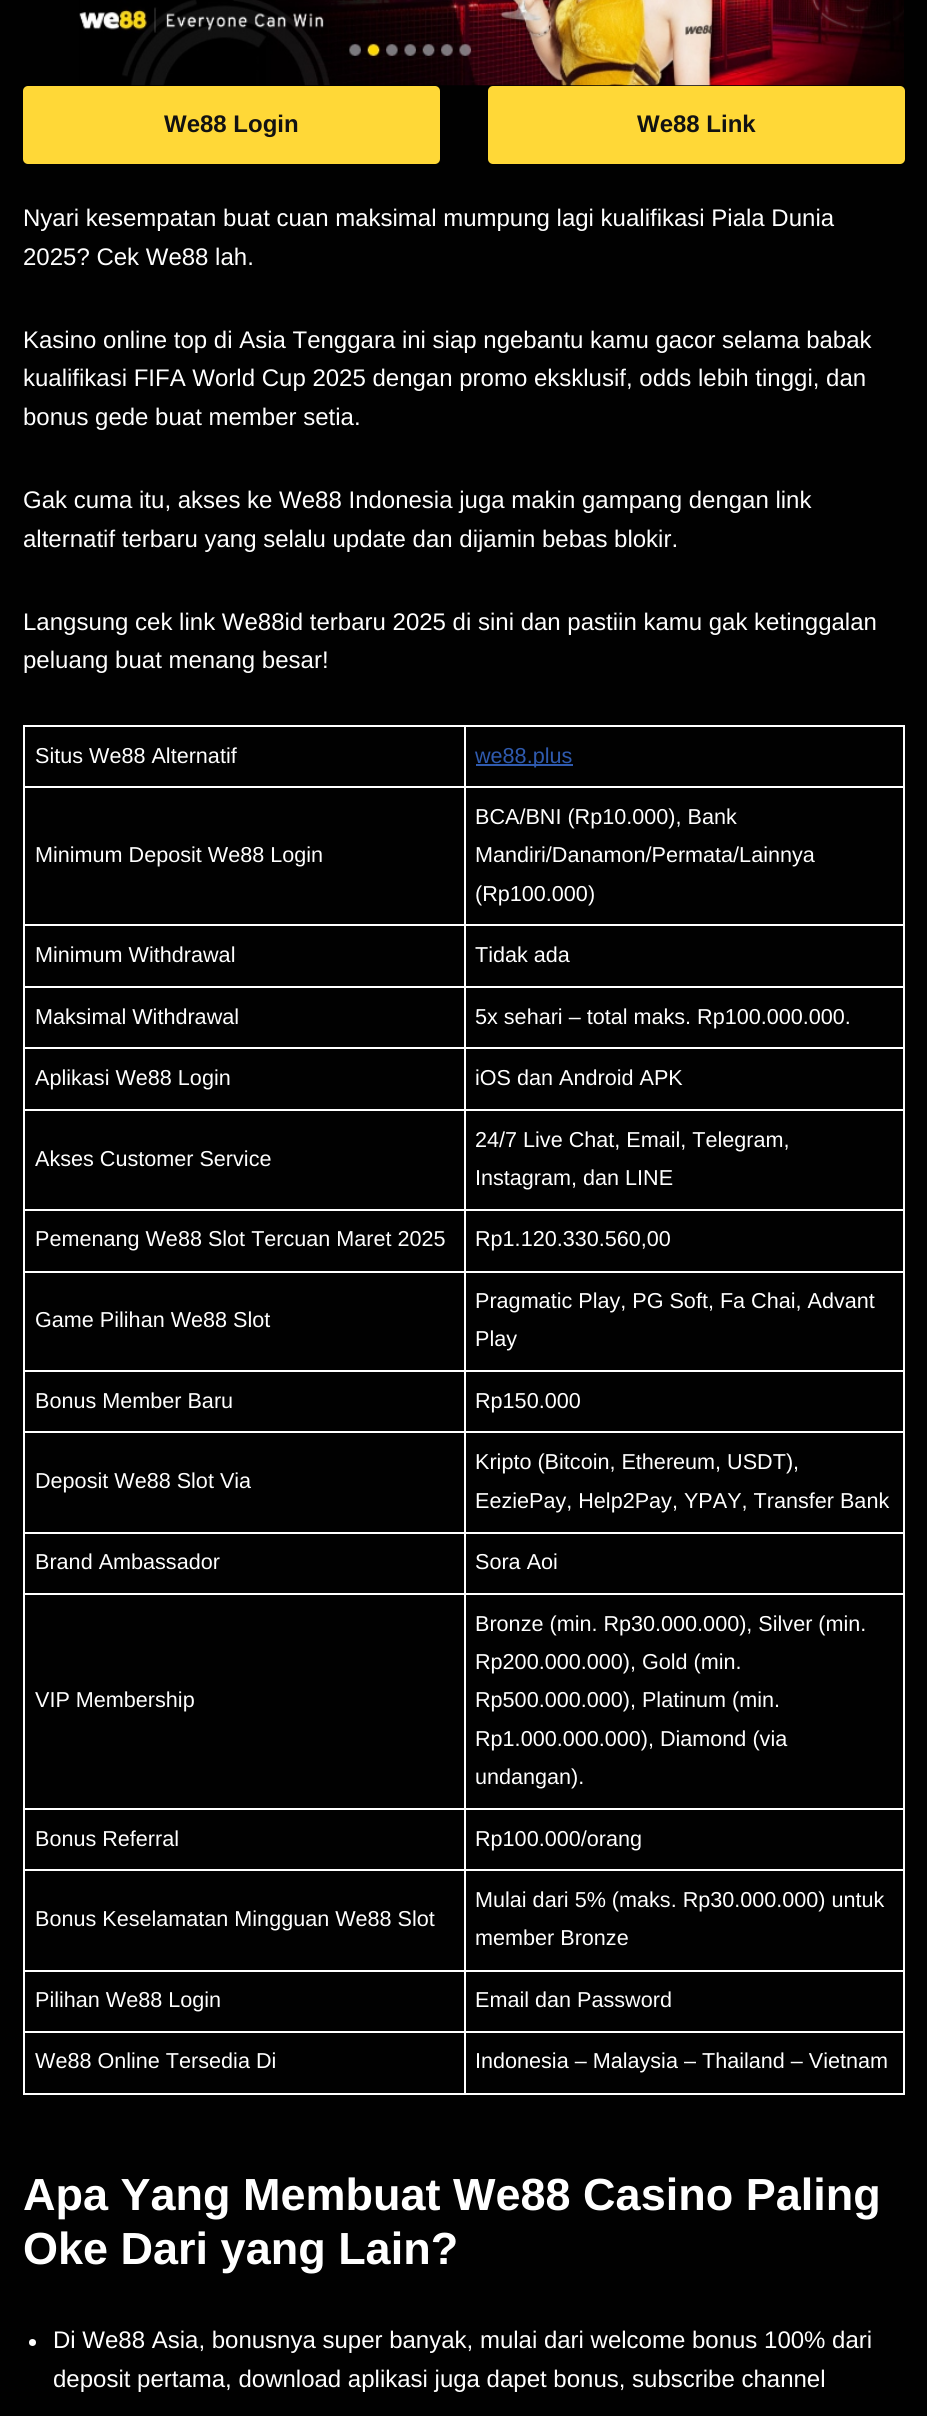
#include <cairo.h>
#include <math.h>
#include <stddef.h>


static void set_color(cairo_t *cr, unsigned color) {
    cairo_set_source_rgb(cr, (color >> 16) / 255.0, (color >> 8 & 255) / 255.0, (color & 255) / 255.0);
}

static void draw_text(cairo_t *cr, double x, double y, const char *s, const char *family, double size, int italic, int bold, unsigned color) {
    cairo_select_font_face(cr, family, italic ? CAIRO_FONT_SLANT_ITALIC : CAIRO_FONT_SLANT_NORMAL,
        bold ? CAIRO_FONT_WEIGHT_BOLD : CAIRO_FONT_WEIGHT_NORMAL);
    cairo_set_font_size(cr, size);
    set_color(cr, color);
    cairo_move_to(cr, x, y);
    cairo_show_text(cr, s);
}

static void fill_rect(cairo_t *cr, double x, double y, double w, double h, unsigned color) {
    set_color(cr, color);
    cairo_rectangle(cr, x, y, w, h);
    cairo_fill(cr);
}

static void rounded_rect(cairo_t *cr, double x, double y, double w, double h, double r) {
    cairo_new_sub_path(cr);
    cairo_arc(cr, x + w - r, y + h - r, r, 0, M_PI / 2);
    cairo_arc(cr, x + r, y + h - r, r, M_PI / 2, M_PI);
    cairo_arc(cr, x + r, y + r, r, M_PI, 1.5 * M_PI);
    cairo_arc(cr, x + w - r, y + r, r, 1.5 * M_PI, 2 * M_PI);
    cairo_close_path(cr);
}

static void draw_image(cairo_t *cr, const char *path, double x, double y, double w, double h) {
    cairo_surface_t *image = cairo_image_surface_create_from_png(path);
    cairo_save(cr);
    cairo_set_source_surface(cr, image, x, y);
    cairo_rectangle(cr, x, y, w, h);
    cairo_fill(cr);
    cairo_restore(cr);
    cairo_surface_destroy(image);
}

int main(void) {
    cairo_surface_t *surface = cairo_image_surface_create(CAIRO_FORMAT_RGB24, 927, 2416);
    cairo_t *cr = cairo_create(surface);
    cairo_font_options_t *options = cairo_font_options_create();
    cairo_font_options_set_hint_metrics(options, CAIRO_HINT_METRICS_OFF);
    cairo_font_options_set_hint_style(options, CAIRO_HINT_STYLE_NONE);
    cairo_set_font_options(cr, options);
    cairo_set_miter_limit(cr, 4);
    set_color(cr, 0x010101);
    cairo_paint(cr);
    draw_image(cr, "assets/img1.png", 79, 0, 825, 86);
    set_color(cr, 0xFFD837);
    rounded_rect(cr, 23, 86, 417, 78, 5);
    cairo_fill(cr);
    draw_text(cr, 164, 132, "We88 Login", "Liberation Sans", 24, 0, 1, 0x121212);
    set_color(cr, 0xFFD837);
    rounded_rect(cr, 488, 86, 417, 78, 5);
    cairo_fill(cr);
    draw_text(cr, 637, 132, "We88 Link", "Liberation Sans", 24, 0, 1, 0x121212);
    draw_text(cr, 23, 226, "Nyari kesempatan buat cuan maksimal mumpung lagi kualifikasi Piala Dunia", "Liberation Sans", 24, 0, 0, 0xFFFFFF);
    draw_text(cr, 23, 265, "2025? Cek We88 lah.", "Liberation Sans", 24, 0, 0, 0xFFFFFF);
    draw_text(cr, 23, 348, "Kasino online top di Asia Tenggara ini siap ngebantu kamu gacor selama babak", "Liberation Sans", 24, 0, 0, 0xFFFFFF);
    draw_text(cr, 23, 386, "kualifikasi FIFA World Cup 2025 dengan promo eksklusif, odds lebih tinggi, dan", "Liberation Sans", 24, 0, 0, 0xFFFFFF);
    draw_text(cr, 23, 425, "bonus gede buat member setia.", "Liberation Sans", 24, 0, 0, 0xFFFFFF);
    draw_text(cr, 23, 508, "Gak cuma itu, akses ke We88 Indonesia juga makin gampang dengan link", "Liberation Sans", 24, 0, 0, 0xFFFFFF);
    draw_text(cr, 23, 547, "alternatif terbaru yang selalu update dan dijamin bebas blokir.", "Liberation Sans", 24, 0, 0, 0xFFFFFF);
    draw_text(cr, 23, 630, "Langsung cek link We88id terbaru 2025 di sini dan pastiin kamu gak ketinggalan", "Liberation Sans", 24, 0, 0, 0xFFFFFF);
    draw_text(cr, 23, 668, "peluang buat menang besar!", "Liberation Sans", 24, 0, 0, 0xFFFFFF);
    fill_rect(cr, 464, 725, 441, 2, 0xFFFFFF);
    fill_rect(cr, 464, 786, 441, 2, 0xFFFFFF);
    fill_rect(cr, 464, 924, 441, 2, 0xFFFFFF);
    fill_rect(cr, 464, 986, 441, 2, 0xFFFFFF);
    fill_rect(cr, 464, 1047, 441, 2, 0xFFFFFF);
    fill_rect(cr, 464, 1109, 441, 2, 0xFFFFFF);
    fill_rect(cr, 464, 1209, 441, 2, 0xFFFFFF);
    fill_rect(cr, 464, 1271, 441, 2, 0xFFFFFF);
    fill_rect(cr, 464, 1370, 441, 2, 0xFFFFFF);
    fill_rect(cr, 464, 1431, 441, 2, 0xFFFFFF);
    fill_rect(cr, 464, 1532, 441, 2, 0xFFFFFF);
    fill_rect(cr, 464, 1593, 441, 2, 0xFFFFFF);
    fill_rect(cr, 464, 1808, 441, 2, 0xFFFFFF);
    fill_rect(cr, 464, 1869, 441, 2, 0xFFFFFF);
    fill_rect(cr, 464, 1970, 441, 2, 0xFFFFFF);
    fill_rect(cr, 464, 2031, 441, 2, 0xFFFFFF);
    fill_rect(cr, 903, 2031, 2, 63, 0xFFFFFF);
    fill_rect(cr, 464, 2093, 441, 2, 0xFFFFFF);
    fill_rect(cr, 464, 2031, 2, 63, 0xFFFFFF);
    fill_rect(cr, 23, 2031, 442, 2, 0xFFFFFF);
    fill_rect(cr, 464, 1970, 2, 63, 0xFFFFFF);
    fill_rect(cr, 23, 1970, 442, 2, 0xFFFFFF);
    fill_rect(cr, 464, 1869, 2, 102, 0xFFFFFF);
    fill_rect(cr, 23, 1869, 442, 2, 0xFFFFFF);
    fill_rect(cr, 464, 1808, 2, 63, 0xFFFFFF);
    fill_rect(cr, 23, 1808, 442, 2, 0xFFFFFF);
    fill_rect(cr, 464, 1593, 2, 216, 0xFFFFFF);
    fill_rect(cr, 23, 1593, 442, 2, 0xFFFFFF);
    fill_rect(cr, 464, 1532, 2, 63, 0xFFFFFF);
    fill_rect(cr, 23, 1532, 442, 2, 0xFFFFFF);
    fill_rect(cr, 464, 1431, 2, 102, 0xFFFFFF);
    fill_rect(cr, 23, 1431, 442, 2, 0xFFFFFF);
    fill_rect(cr, 464, 1370, 2, 63, 0xFFFFFF);
    fill_rect(cr, 23, 1370, 442, 2, 0xFFFFFF);
    fill_rect(cr, 464, 1271, 2, 100, 0xFFFFFF);
    fill_rect(cr, 23, 1271, 442, 2, 0xFFFFFF);
    fill_rect(cr, 464, 1209, 2, 63, 0xFFFFFF);
    fill_rect(cr, 23, 1209, 442, 2, 0xFFFFFF);
    fill_rect(cr, 464, 1109, 2, 102, 0xFFFFFF);
    fill_rect(cr, 23, 1109, 442, 2, 0xFFFFFF);
    fill_rect(cr, 464, 1047, 2, 63, 0xFFFFFF);
    fill_rect(cr, 23, 1047, 442, 2, 0xFFFFFF);
    fill_rect(cr, 464, 986, 2, 63, 0xFFFFFF);
    fill_rect(cr, 23, 986, 442, 2, 0xFFFFFF);
    fill_rect(cr, 464, 924, 2, 63, 0xFFFFFF);
    fill_rect(cr, 23, 924, 442, 2, 0xFFFFFF);
    fill_rect(cr, 464, 786, 2, 140, 0xFFFFFF);
    fill_rect(cr, 23, 786, 442, 2, 0xFFFFFF);
    fill_rect(cr, 464, 725, 2, 63, 0xFFFFFF);
    fill_rect(cr, 23, 725, 442, 2, 0xFFFFFF);
    fill_rect(cr, 23, 2093, 442, 2, 0xFFFFFF);
    fill_rect(cr, 23, 2031, 2, 63, 0xFFFFFF);
    fill_rect(cr, 23, 1970, 2, 63, 0xFFFFFF);
    fill_rect(cr, 23, 1869, 2, 102, 0xFFFFFF);
    fill_rect(cr, 23, 1808, 2, 63, 0xFFFFFF);
    fill_rect(cr, 23, 1593, 2, 216, 0xFFFFFF);
    fill_rect(cr, 23, 1532, 2, 63, 0xFFFFFF);
    fill_rect(cr, 23, 1431, 2, 102, 0xFFFFFF);
    fill_rect(cr, 23, 1370, 2, 63, 0xFFFFFF);
    fill_rect(cr, 23, 1271, 2, 100, 0xFFFFFF);
    fill_rect(cr, 23, 1209, 2, 63, 0xFFFFFF);
    fill_rect(cr, 23, 1109, 2, 102, 0xFFFFFF);
    fill_rect(cr, 23, 1047, 2, 63, 0xFFFFFF);
    fill_rect(cr, 23, 986, 2, 63, 0xFFFFFF);
    fill_rect(cr, 23, 924, 2, 63, 0xFFFFFF);
    fill_rect(cr, 23, 786, 2, 140, 0xFFFFFF);
    fill_rect(cr, 23, 725, 2, 63, 0xFFFFFF);
    draw_text(cr, 35, 763, "Situs We88 Alternatif", "Liberation Sans", 21.6, 0, 0, 0xFFFFFF);
    fill_rect(cr, 903, 1970, 2, 63, 0xFFFFFF);
    fill_rect(cr, 903, 1869, 2, 102, 0xFFFFFF);
    fill_rect(cr, 903, 1808, 2, 63, 0xFFFFFF);
    fill_rect(cr, 903, 1593, 2, 216, 0xFFFFFF);
    fill_rect(cr, 903, 1532, 2, 63, 0xFFFFFF);
    fill_rect(cr, 903, 1431, 2, 102, 0xFFFFFF);
    fill_rect(cr, 903, 1370, 2, 63, 0xFFFFFF);
    fill_rect(cr, 903, 1271, 2, 100, 0xFFFFFF);
    fill_rect(cr, 903, 1209, 2, 63, 0xFFFFFF);
    fill_rect(cr, 903, 1109, 2, 102, 0xFFFFFF);
    fill_rect(cr, 903, 1047, 2, 63, 0xFFFFFF);
    fill_rect(cr, 903, 986, 2, 63, 0xFFFFFF);
    fill_rect(cr, 903, 924, 2, 63, 0xFFFFFF);
    fill_rect(cr, 903, 786, 2, 140, 0xFFFFFF);
    fill_rect(cr, 903, 725, 2, 63, 0xFFFFFF);
    fill_rect(cr, 476, 764, 97, 2, 0x2F5AAE);
    draw_text(cr, 475, 763, "we88.plus", "Liberation Sans", 21.6, 0, 0, 0x2F5AAE);
    draw_text(cr, 35, 862, "Minimum Deposit We88 Login", "Liberation Sans", 21.6, 0, 0, 0xFFFFFF);
    draw_text(cr, 475, 824, "BCA/BNI (Rp10.000), Bank", "Liberation Sans", 21.6, 0, 0, 0xFFFFFF);
    draw_text(cr, 475, 862, "Mandiri/Danamon/Permata/Lainnya", "Liberation Sans", 21.6, 0, 0, 0xFFFFFF);
    draw_text(cr, 475, 901, "(Rp100.000)", "Liberation Sans", 21.6, 0, 0, 0xFFFFFF);
    draw_text(cr, 35, 962, "Minimum Withdrawal", "Liberation Sans", 21.6, 0, 0, 0xFFFFFF);
    draw_text(cr, 475, 962, "Tidak ada", "Liberation Sans", 21.6, 0, 0, 0xFFFFFF);
    draw_text(cr, 35, 1024, "Maksimal Withdrawal", "Liberation Sans", 21.6, 0, 0, 0xFFFFFF);
    draw_text(cr, 475, 1024, "5x sehari – total maks. Rp100.000.000.", "Liberation Sans", 21.6, 0, 0, 0xFFFFFF);
    draw_text(cr, 35, 1085, "Aplikasi We88 Login", "Liberation Sans", 21.6, 0, 0, 0xFFFFFF);
    draw_text(cr, 475, 1085, "iOS dan Android APK", "Liberation Sans", 21.6, 0, 0, 0xFFFFFF);
    draw_text(cr, 35, 1166, "Akses Customer Service", "Liberation Sans", 21.6, 0, 0, 0xFFFFFF);
    draw_text(cr, 475, 1147, "24/7 Live Chat, Email, Telegram,", "Liberation Sans", 21.6, 0, 0, 0xFFFFFF);
    draw_text(cr, 475, 1185, "Instagram, dan LINE", "Liberation Sans", 21.6, 0, 0, 0xFFFFFF);
    draw_text(cr, 35, 1246, "Pemenang We88 Slot Tercuan Maret 2025", "Liberation Sans", 21.6, 0, 0, 0xFFFFFF);
    draw_text(cr, 475, 1246, "Rp1.120.330.560,00", "Liberation Sans", 21.6, 0, 0, 0xFFFFFF);
    draw_text(cr, 35, 1327, "Game Pilihan We88 Slot", "Liberation Sans", 21.6, 0, 0, 0xFFFFFF);
    draw_text(cr, 475, 1308, "Pragmatic Play, PG Soft, Fa Chai, Advant", "Liberation Sans", 21.6, 0, 0, 0xFFFFFF);
    draw_text(cr, 475, 1346, "Play", "Liberation Sans", 21.6, 0, 0, 0xFFFFFF);
    draw_text(cr, 35, 1408, "Bonus Member Baru", "Liberation Sans", 21.6, 0, 0, 0xFFFFFF);
    draw_text(cr, 475, 1408, "Rp150.000", "Liberation Sans", 21.6, 0, 0, 0xFFFFFF);
    draw_text(cr, 35, 1488, "Deposit We88 Slot Via", "Liberation Sans", 21.6, 0, 0, 0xFFFFFF);
    draw_text(cr, 475, 1469, "Kripto (Bitcoin, Ethereum, USDT),", "Liberation Sans", 21.6, 0, 0, 0xFFFFFF);
    draw_text(cr, 475, 1508, "EeziePay, Help2Pay, YPAY, Transfer Bank", "Liberation Sans", 21.6, 0, 0, 0xFFFFFF);
    draw_text(cr, 35, 1569, "Brand Ambassador", "Liberation Sans", 21.6, 0, 0, 0xFFFFFF);
    draw_text(cr, 475, 1569, "Sora Aoi", "Liberation Sans", 21.6, 0, 0, 0xFFFFFF);
    draw_text(cr, 35, 1707, "VIP Membership", "Liberation Sans", 21.6, 0, 0, 0xFFFFFF);
    draw_text(cr, 475, 1631, "Bronze (min. Rp30.000.000), Silver (min.", "Liberation Sans", 21.6, 0, 0, 0xFFFFFF);
    draw_text(cr, 475, 1669, "Rp200.000.000), Gold (min.", "Liberation Sans", 21.6, 0, 0, 0xFFFFFF);
    draw_text(cr, 475, 1707, "Rp500.000.000), Platinum (min.", "Liberation Sans", 21.6, 0, 0, 0xFFFFFF);
    draw_text(cr, 475, 1746, "Rp1.000.000.000), Diamond (via", "Liberation Sans", 21.6, 0, 0, 0xFFFFFF);
    draw_text(cr, 475, 1784, "undangan).", "Liberation Sans", 21.6, 0, 0, 0xFFFFFF);
    draw_text(cr, 35, 1846, "Bonus Referral", "Liberation Sans", 21.6, 0, 0, 0xFFFFFF);
    draw_text(cr, 475, 1846, "Rp100.000/orang", "Liberation Sans", 21.6, 0, 0, 0xFFFFFF);
    draw_text(cr, 35, 1926, "Bonus Keselamatan Mingguan We88 Slot", "Liberation Sans", 21.6, 0, 0, 0xFFFFFF);
    draw_text(cr, 475, 1907, "Mulai dari 5% (maks. Rp30.000.000) untuk", "Liberation Sans", 21.6, 0, 0, 0xFFFFFF);
    draw_text(cr, 475, 1945, "member Bronze", "Liberation Sans", 21.6, 0, 0, 0xFFFFFF);
    draw_text(cr, 35, 2007, "Pilihan We88 Login", "Liberation Sans", 21.6, 0, 0, 0xFFFFFF);
    draw_text(cr, 475, 2007, "Email dan Password", "Liberation Sans", 21.6, 0, 0, 0xFFFFFF);
    draw_text(cr, 35, 2068, "We88 Online Tersedia Di", "Liberation Sans", 21.6, 0, 0, 0xFFFFFF);
    draw_text(cr, 475, 2068, "Indonesia – Malaysia – Thailand – Vietnam", "Liberation Sans", 21.6, 0, 0, 0xFFFFFF);
    draw_text(cr, 23, 2210, "Apa Yang Membuat We88 Casino Paling", "Liberation Sans", 45, 0, 1, 0xFFFFFF);
    draw_text(cr, 23, 2264, "Oke Dari yang Lain?", "Liberation Sans", 45, 0, 1, 0xFFFFFF);
    cairo_new_path(cr);
    cairo_arc(cr, 32.5, 2342.5, 3.5, 0, 2 * M_PI);
    cairo_fill(cr);
    draw_text(cr, 53, 2348, "Di We88 Asia, bonusnya super banyak, mulai dari welcome bonus 100% dari", "Liberation Sans", 24, 0, 0, 0xFFFFFF);
    draw_text(cr, 53, 2387, "deposit pertama, download aplikasi juga dapet bonus, subscribe channel", "Liberation Sans", 24, 0, 0, 0xFFFFFF);
    cairo_surface_write_to_png(surface, "output.png");
    cairo_font_options_destroy(options);
    cairo_destroy(cr);
    cairo_surface_destroy(surface);
    return 0;
}
